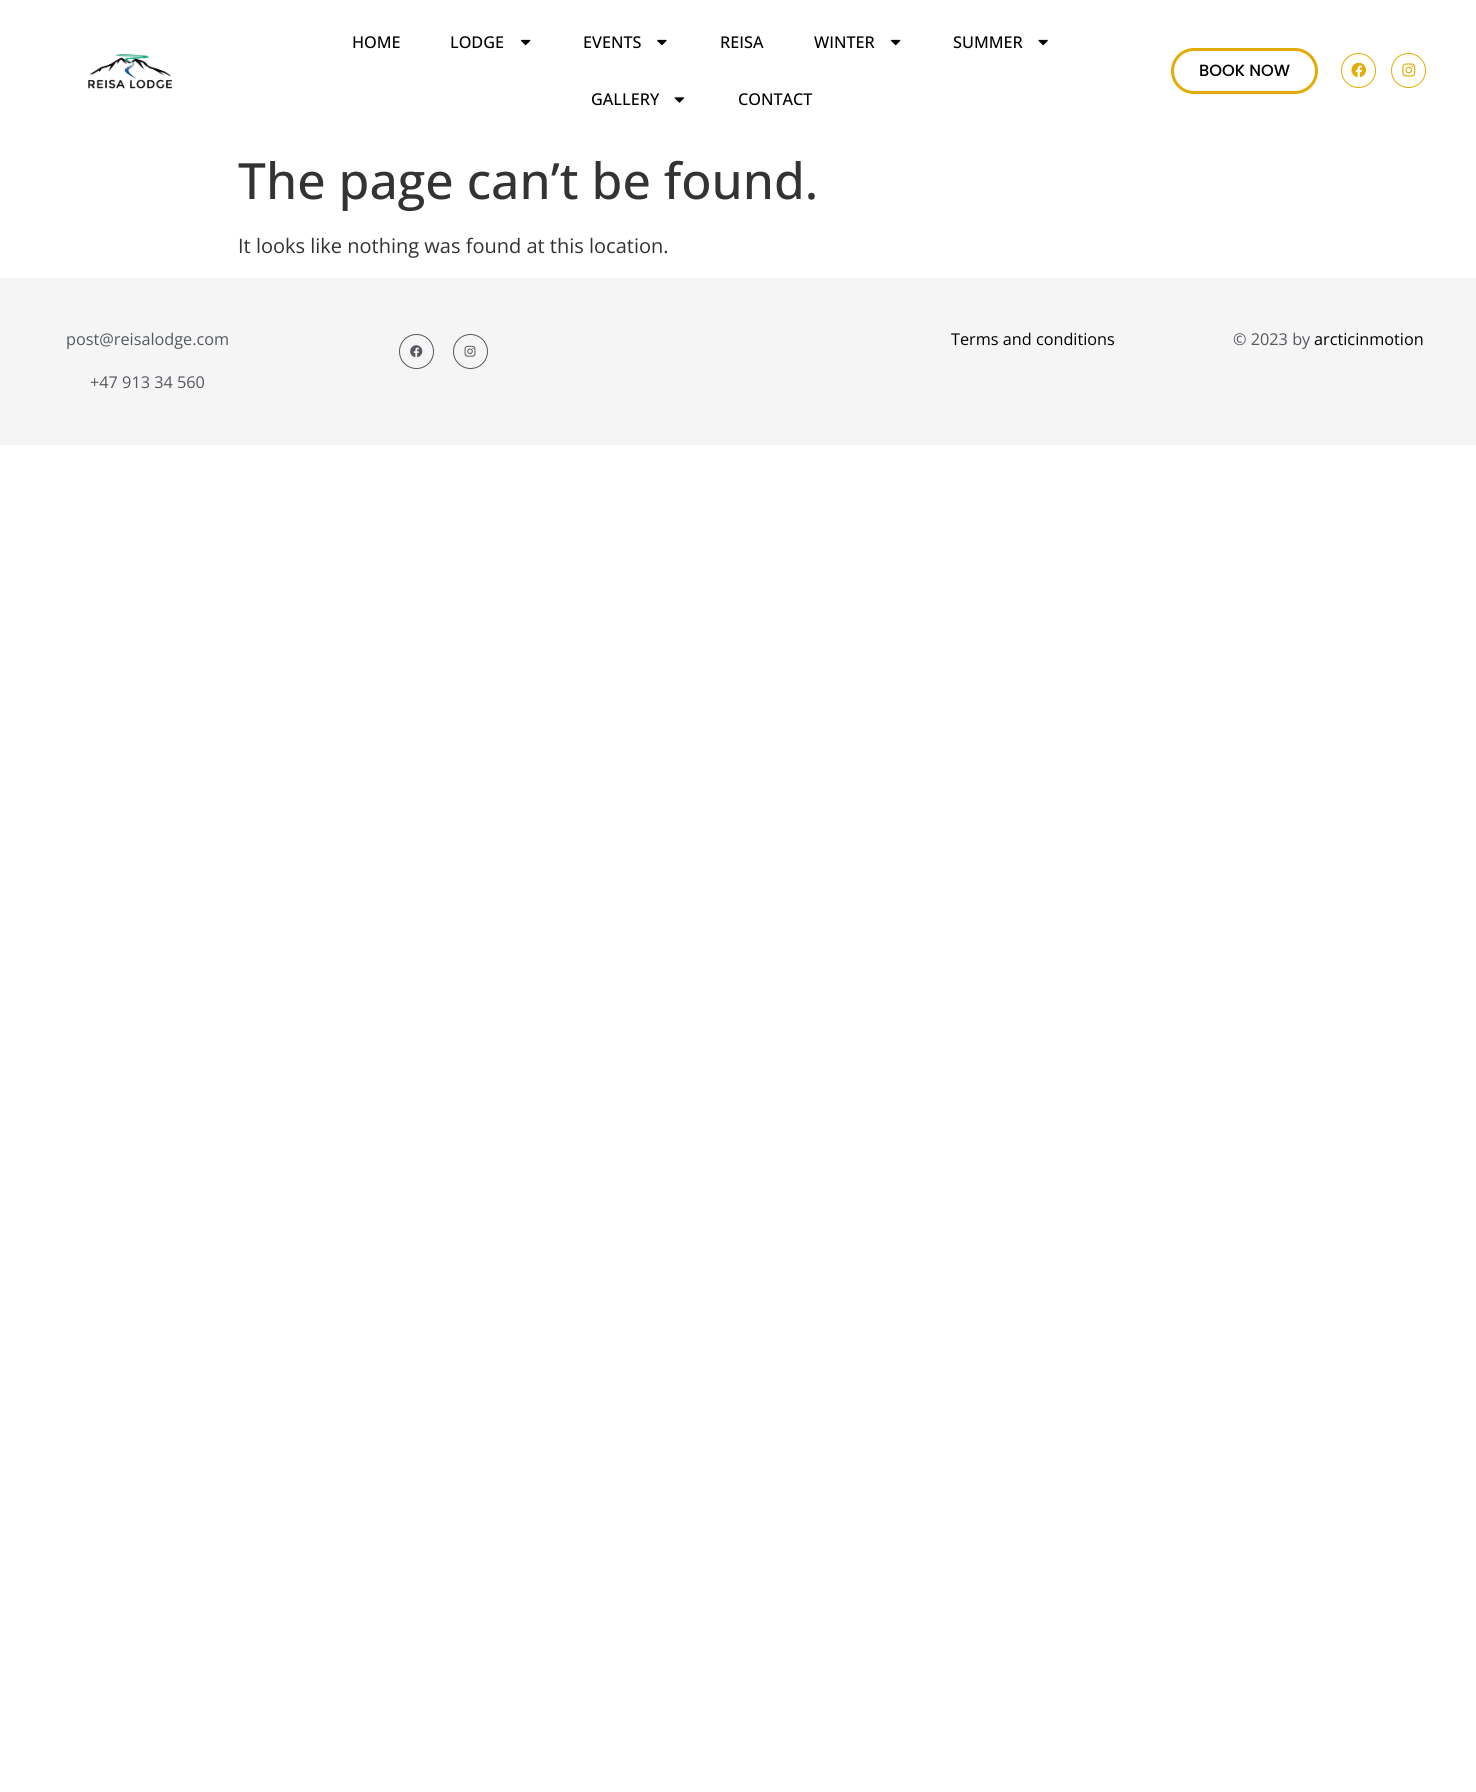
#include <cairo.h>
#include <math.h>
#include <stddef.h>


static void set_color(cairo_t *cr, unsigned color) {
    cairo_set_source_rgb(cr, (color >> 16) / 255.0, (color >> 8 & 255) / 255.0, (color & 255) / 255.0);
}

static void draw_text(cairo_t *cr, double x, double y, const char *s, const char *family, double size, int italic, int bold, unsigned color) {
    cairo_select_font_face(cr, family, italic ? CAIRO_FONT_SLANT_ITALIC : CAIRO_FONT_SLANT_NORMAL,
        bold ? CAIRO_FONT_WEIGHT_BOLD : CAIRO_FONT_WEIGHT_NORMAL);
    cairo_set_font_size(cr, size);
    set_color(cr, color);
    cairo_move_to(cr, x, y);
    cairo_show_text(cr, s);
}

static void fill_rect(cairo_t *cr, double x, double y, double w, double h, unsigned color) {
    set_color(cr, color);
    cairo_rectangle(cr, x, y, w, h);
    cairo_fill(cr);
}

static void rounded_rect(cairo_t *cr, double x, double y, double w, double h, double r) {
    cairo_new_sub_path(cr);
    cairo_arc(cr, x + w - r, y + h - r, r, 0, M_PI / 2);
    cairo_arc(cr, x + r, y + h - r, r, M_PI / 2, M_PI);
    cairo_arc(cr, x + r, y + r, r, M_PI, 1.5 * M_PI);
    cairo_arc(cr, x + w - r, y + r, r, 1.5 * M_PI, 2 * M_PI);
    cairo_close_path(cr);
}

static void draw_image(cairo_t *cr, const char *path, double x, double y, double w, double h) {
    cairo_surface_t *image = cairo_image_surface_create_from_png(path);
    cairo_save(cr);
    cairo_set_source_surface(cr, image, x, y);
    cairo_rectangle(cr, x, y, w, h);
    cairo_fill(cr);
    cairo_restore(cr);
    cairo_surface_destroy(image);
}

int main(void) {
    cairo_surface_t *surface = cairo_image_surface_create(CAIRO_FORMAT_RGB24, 1476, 1792);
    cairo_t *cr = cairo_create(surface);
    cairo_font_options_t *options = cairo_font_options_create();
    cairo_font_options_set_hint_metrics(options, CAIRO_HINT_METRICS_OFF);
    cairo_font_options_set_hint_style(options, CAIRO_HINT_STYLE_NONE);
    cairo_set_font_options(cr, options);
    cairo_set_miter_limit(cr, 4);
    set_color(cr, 0xFFFFFF);
    cairo_paint(cr);
    draw_image(cr, "assets/img1.png", 88, 53, 85, 36);
    draw_text(cr, 352, 48, "HOME", "Open Sans Medium", 16.25, 0, 0, 0x000000);
    draw_text(cr, 450, 48, "LODGE", "Open Sans Medium", 16.25, 0, 0, 0x000000);
    draw_image(cr, "assets/img2.png", 520, 39, 11, 7);
    draw_text(cr, 583, 48, "EVENTS", "Open Sans Medium", 16.25, 0, 0, 0x000000);
    draw_image(cr, "assets/img3.png", 657, 39, 10, 7);
    draw_text(cr, 720, 48, "REISA", "Open Sans Medium", 16.25, 0, 0, 0x000000);
    draw_text(cr, 814, 48, "WINTER", "Open Sans Medium", 16.25, 0, 0, 0x000000);
    draw_image(cr, "assets/img2.png", 890, 39, 11, 7);
    draw_text(cr, 953, 48, "SUMMER", "Open Sans Medium", 16.25, 0, 0, 0x000000);
    draw_image(cr, "assets/img4.png", 1038, 39, 10, 7);
    draw_text(cr, 591, 105, "GALLERY", "Open Sans Medium", 16.25, 0, 0, 0x000000);
    draw_image(cr, "assets/img5.png", 674, 97, 10, 6);
    draw_text(cr, 738, 105, "CONTACT", "Open Sans Medium", 16.25, 0, 0, 0x000000);
    rounded_rect(cr, 1172.5, 49.5, 144, 43, 21.5);
    set_color(cr, 0xE3AB05);
    cairo_set_line_width(cr, 3);
    cairo_stroke(cr);
    draw_text(cr, 1199, 76, "BOOK NOW", "Poppins Medium", 16.25, 0, 0, 0x000000);
    cairo_new_path(cr);
    cairo_arc(cr, 1358.5, 70.5, 17, 0, 2 * M_PI);
    set_color(cr, 0xE3AB05);
    cairo_set_line_width(cr, 1);
    cairo_stroke(cr);
    draw_image(cr, "assets/img6.png", 1351, 63, 15, 15);
    cairo_arc(cr, 1408.5, 70.5, 17, 0, 2 * M_PI);
    cairo_stroke(cr);
    draw_image(cr, "assets/img7.png", 1402, 63, 14, 14);
    draw_text(cr, 238, 199, "The page can’t be found.", "Open Sans Medium", 50, 0, 0, 0x333333);
    draw_text(cr, 238, 253, "It looks like nothing was found at this location.", "Open Sans", 20, 0, 0, 0x333333);
    fill_rect(cr, 0, 278, 1476, 167, 0xF5F5F5);
    draw_text(cr, 66, 345, "post@reisalodge.com", "Open Sans", 16.25, 0, 0, 0x54595F);
    draw_text(cr, 90, 388, "+47 913 34 560", "Open Sans", 16.25, 0, 0, 0x54595F);
    cairo_new_path(cr);
    cairo_arc(cr, 416.5, 351.5, 17, 0, 2 * M_PI);
    cairo_stroke(cr);
    draw_image(cr, "assets/img8.png", 410, 345, 13, 13);
    cairo_arc(cr, 470.5, 351.5, 17, 0, 2 * M_PI);
    cairo_stroke(cr);
    draw_image(cr, "assets/img9.png", 464, 345, 12, 12);
    draw_text(cr, 951, 345, "Terms and conditions", "Open Sans", 16.25, 0, 0, 0x000000);
    draw_text(cr, 1233, 345, "© 2023 by", "Open Sans", 16.25, 0, 0, 0x54595F);
    draw_text(cr, 1314, 345, "arcticinmotion", "Open Sans", 16.25, 0, 0, 0x000000);
    cairo_surface_write_to_png(surface, "output.png");
    cairo_font_options_destroy(options);
    cairo_destroy(cr);
    cairo_surface_destroy(surface);
    return 0;
}
